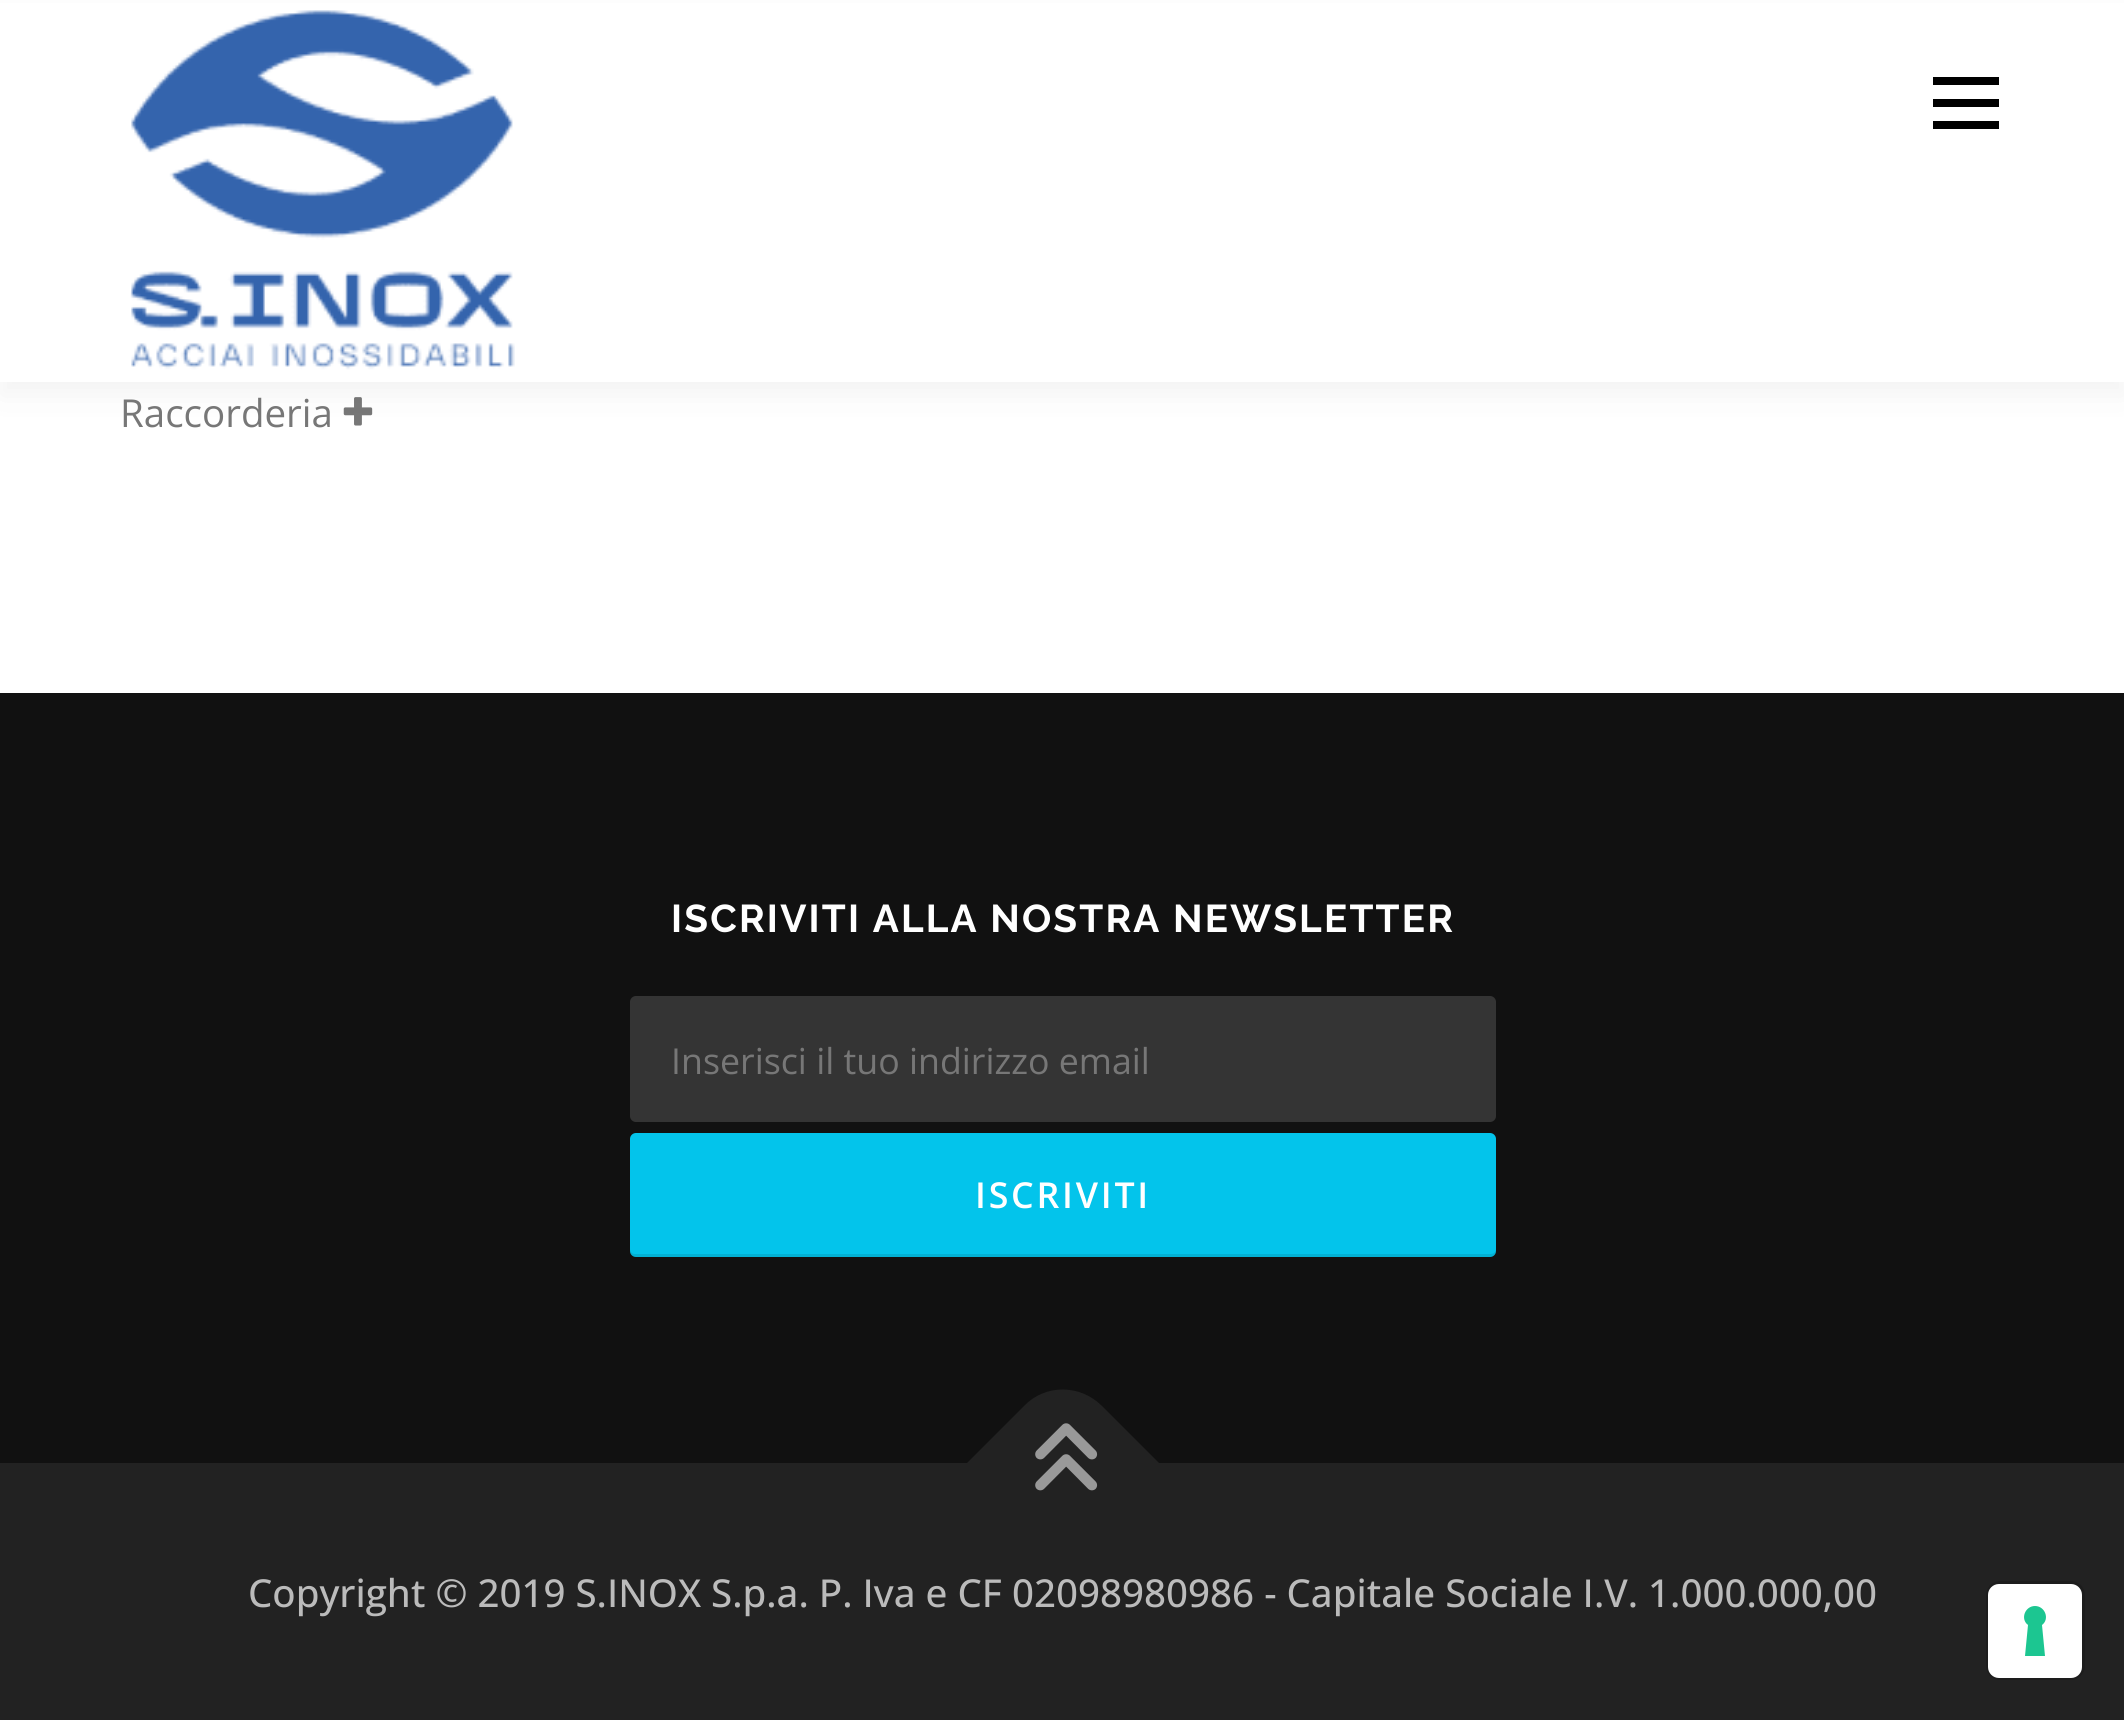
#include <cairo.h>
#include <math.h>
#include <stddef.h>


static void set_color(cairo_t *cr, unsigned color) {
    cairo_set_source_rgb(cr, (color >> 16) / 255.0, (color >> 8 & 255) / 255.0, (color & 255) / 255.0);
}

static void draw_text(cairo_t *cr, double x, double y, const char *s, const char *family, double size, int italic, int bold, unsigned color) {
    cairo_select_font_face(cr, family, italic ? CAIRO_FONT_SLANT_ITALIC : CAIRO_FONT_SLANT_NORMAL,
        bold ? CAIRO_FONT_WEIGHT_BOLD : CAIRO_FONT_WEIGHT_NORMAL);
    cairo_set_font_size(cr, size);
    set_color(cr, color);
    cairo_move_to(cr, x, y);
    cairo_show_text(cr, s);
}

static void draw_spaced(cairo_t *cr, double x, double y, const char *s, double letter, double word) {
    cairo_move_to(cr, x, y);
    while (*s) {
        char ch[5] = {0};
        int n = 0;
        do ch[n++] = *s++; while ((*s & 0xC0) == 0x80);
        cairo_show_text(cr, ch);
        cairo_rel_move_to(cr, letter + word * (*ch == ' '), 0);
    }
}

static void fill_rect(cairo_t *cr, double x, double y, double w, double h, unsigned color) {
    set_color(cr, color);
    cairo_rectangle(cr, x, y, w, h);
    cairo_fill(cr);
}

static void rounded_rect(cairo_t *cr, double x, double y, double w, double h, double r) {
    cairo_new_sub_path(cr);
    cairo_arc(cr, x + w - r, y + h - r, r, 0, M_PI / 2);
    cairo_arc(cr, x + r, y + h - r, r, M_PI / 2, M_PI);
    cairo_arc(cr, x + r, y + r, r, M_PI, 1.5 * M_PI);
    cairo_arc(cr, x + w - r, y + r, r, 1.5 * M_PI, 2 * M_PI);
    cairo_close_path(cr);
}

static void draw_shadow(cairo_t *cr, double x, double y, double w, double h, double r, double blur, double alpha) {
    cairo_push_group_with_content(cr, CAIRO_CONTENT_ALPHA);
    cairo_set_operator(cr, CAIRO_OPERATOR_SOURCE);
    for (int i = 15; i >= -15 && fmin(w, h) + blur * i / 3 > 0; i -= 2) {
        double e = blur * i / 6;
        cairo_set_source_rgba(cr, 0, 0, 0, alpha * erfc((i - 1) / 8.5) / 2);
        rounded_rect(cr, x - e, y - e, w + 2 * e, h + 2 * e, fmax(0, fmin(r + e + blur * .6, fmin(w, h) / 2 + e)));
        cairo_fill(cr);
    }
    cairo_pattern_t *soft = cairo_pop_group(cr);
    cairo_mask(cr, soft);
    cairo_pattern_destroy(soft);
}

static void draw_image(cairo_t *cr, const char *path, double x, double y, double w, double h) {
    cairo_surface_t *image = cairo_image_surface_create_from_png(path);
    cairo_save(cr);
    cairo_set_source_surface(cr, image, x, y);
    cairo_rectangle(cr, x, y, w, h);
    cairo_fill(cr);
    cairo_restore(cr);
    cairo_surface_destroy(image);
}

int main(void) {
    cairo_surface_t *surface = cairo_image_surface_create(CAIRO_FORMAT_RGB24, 2124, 1720);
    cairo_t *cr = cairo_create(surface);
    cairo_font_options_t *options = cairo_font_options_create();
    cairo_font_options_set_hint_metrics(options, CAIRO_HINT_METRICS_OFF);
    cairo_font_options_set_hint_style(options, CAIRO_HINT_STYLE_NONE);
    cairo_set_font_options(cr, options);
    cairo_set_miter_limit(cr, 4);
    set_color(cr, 0xFFFFFF);
    cairo_paint(cr);
    draw_image(cr, "assets/img2.png", 343, 397, 30, 29);
    set_color(cr, 0x323232);
    draw_shadow(cr, 0, 14, 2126, 382, 0, 14, 0.06);
    fill_rect(cr, 0, 3, 2124, 379, 0xFFFFFF);
    draw_image(cr, "assets/img1.png", 130, 10, 385, 360);
    fill_rect(cr, 1933, 99, 66, 8, 0x000000);
    fill_rect(cr, 1933, 77, 66, 8, 0x000000);
    fill_rect(cr, 1933, 121, 66, 8, 0x000000);
    draw_text(cr, 120, 427, "Raccorderia", "Open Sans", 38.5, 0, 0, 0x777777);
    fill_rect(cr, 0, 693, 2124, 770, 0x111111);
    cairo_select_font_face(cr, "Raleway", CAIRO_FONT_SLANT_NORMAL, CAIRO_FONT_WEIGHT_BOLD);
    cairo_set_font_size(cr, 38.7);
    set_color(cr, 0xFFFFFF);
    draw_spaced(cr, 671, 932, "ISCRIVITI ALLA NOSTRA NEWSLETTER", 2.2, 0);
    set_color(cr, 0x343434);
    rounded_rect(cr, 630, 996, 866, 126, 6);
    cairo_fill(cr);
    draw_text(cr, 671, 1074, "Inserisci il tuo indirizzo email", "Open Sans", 35.75, 0, 0, 0x777777);
    set_color(cr, 0x03C4EB);
    rounded_rect(cr, 630, 1133, 866, 124, 6);
    cairo_fill(cr);
    cairo_set_source_rgba(cr, 0, 0, 0, 0.1);
    cairo_new_path(cr);
    cairo_move_to(cr, 630, 1248);
    cairo_line_to(cr, 630, 1251);
    cairo_curve_to(cr, 630, 1254, 633, 1257, 636, 1257);
    cairo_line_to(cr, 1490, 1257);
    cairo_curve_to(cr, 1493, 1257, 1496, 1254, 1496, 1251);
    cairo_line_to(cr, 1496, 1248);
    cairo_curve_to(cr, 1496, 1252, 1494, 1254, 1490, 1254);
    cairo_line_to(cr, 635, 1254);
    cairo_curve_to(cr, 632, 1254, 630, 1252, 630, 1248);
    cairo_close_path(cr);
    cairo_fill(cr);
    cairo_select_font_face(cr, "Open Sans SemiBold", CAIRO_FONT_SLANT_NORMAL, CAIRO_FONT_WEIGHT_NORMAL);
    set_color(cr, 0xFFFFFF);
    draw_spaced(cr, 975, 1208, "ISCRIVITI", 2.75, 0);
    fill_rect(cr, 0, 1463, 2124, 257, 0x222222);
    cairo_new_path(cr);
    cairo_move_to(cr, 966, 1464);
    cairo_line_to(cr, 1024, 1406);
    cairo_curve_to(cr, 1045, 1384, 1080, 1384, 1102, 1406);
    cairo_line_to(cr, 1160, 1464);
    cairo_line_to(cr, 1063, 1561);
    cairo_close_path(cr);
    cairo_fill(cr);
    draw_image(cr, "assets/img3.png", 1035, 1423, 63, 68);
    draw_text(cr, 248, 1607, "Copyright © 2019 S.INOX S.p.a. P. Iva e CF 02098980986 - Capitale Sociale I.V. 1.000.000,00", "Open Sans Medium", 38.5, 0, 0, 0xBBBBBB);
    rounded_rect(cr, 1987.5, 1582.5, 96, 96, 12.5);
    set_color(cr, 0x1D1D1D);
    cairo_set_line_width(cr, 3);
    cairo_stroke(cr);
    set_color(cr, 0xFFFFFF);
    rounded_rect(cr, 1988, 1584, 94, 94, 11);
    cairo_fill(cr);
    set_color(cr, 0x1CC691);
    cairo_set_fill_rule(cr, CAIRO_FILL_RULE_EVEN_ODD);
    cairo_new_path(cr);
    cairo_move_to(cr, 2035, 1606);
    cairo_curve_to(cr, 2045, 1606, 2050, 1619, 2042, 1625);
    cairo_line_to(cr, 2045, 1656);
    cairo_line_to(cr, 2025, 1656);
    cairo_line_to(cr, 2028, 1625);
    cairo_curve_to(cr, 2020, 1619, 2025, 1606, 2035, 1606);
    cairo_close_path(cr);
    cairo_fill(cr);
    cairo_surface_write_to_png(surface, "output.png");
    cairo_font_options_destroy(options);
    cairo_destroy(cr);
    cairo_surface_destroy(surface);
    return 0;
}
